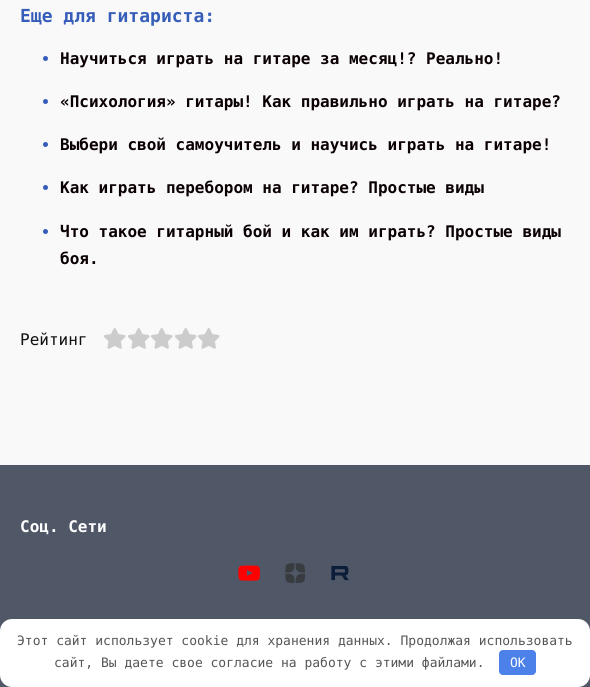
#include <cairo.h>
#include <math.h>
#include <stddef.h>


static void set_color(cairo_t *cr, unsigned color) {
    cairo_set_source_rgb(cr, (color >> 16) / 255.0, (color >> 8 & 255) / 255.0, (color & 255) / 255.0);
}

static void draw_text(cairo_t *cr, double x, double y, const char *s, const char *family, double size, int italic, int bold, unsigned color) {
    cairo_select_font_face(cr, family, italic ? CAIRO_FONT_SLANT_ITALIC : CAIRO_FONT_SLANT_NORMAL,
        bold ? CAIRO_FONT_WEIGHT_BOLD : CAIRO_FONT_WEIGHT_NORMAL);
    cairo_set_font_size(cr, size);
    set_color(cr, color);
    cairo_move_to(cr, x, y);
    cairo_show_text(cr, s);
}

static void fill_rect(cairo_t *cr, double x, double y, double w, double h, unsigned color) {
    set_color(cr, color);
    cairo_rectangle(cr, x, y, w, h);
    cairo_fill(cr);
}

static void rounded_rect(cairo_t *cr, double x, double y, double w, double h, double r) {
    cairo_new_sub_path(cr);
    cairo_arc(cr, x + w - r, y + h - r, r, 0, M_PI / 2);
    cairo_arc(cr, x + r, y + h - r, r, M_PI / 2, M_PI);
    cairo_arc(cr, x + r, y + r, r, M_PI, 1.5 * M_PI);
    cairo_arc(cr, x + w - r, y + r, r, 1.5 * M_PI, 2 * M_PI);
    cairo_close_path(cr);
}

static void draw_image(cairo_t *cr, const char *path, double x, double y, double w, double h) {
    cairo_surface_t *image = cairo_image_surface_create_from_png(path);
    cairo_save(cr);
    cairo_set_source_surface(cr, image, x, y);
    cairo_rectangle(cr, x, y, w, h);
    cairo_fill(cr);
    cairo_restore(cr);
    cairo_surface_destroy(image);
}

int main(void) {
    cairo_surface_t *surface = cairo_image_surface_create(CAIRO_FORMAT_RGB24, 590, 687);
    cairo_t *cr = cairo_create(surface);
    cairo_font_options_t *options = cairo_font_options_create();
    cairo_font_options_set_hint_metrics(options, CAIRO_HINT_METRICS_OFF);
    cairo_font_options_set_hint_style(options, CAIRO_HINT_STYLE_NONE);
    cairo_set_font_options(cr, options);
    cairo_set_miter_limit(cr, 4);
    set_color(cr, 0x505868);
    cairo_paint(cr);
    fill_rect(cr, 0, 0, 590, 465, 0xF9F9F9);
    draw_text(cr, 20, 22, "Еще для гитариста:", "DejaVu Sans Mono", 18, 0, 1, 0x365EB9);
    cairo_new_path(cr);
    cairo_arc(cr, 45.5, 58.5, 2.5, 0, 2 * M_PI);
    cairo_fill(cr);
    draw_text(cr, 60, 64, "Научиться играть на гитаре за месяц!? Реально!", "DejaVu Sans Mono", 16, 0, 1, 0x0A0002);
    set_color(cr, 0x365EB9);
    cairo_new_path(cr);
    cairo_arc(cr, 45.5, 101.5, 2.5, 0, 2 * M_PI);
    cairo_fill(cr);
    draw_text(cr, 60, 107, "«Психология» гитары! Как правильно играть на гитаре?", "DejaVu Sans Mono", 16, 0, 1, 0x0A0002);
    set_color(cr, 0x365EB9);
    cairo_new_path(cr);
    cairo_arc(cr, 45.5, 144.5, 2.5, 0, 2 * M_PI);
    cairo_fill(cr);
    draw_text(cr, 60, 150, "Выбери свой самоучитель и научись играть на гитаре!", "DejaVu Sans Mono", 16, 0, 1, 0x0A0002);
    set_color(cr, 0x365EB9);
    cairo_new_path(cr);
    cairo_arc(cr, 45.5, 187.5, 2.5, 0, 2 * M_PI);
    cairo_fill(cr);
    draw_text(cr, 60, 193, "Как играть перебором на гитаре? Простые виды", "DejaVu Sans Mono", 16, 0, 1, 0x0A0002);
    set_color(cr, 0x365EB9);
    cairo_new_path(cr);
    cairo_arc(cr, 45.5, 231.5, 2.5, 0, 2 * M_PI);
    cairo_fill(cr);
    draw_text(cr, 60, 237, "Что такое гитарный бой и как им играть? Простые виды", "DejaVu Sans Mono", 16, 0, 1, 0x0A0002);
    draw_text(cr, 60, 264, "боя.", "DejaVu Sans Mono", 16, 0, 1, 0x0A0002);
    draw_text(cr, 20, 345, "Рейтинг", "DejaVu Sans Mono", 16, 0, 0, 0x111111);
    draw_image(cr, "assets/img1.png", 104, 328, 22, 21);
    draw_image(cr, "assets/img1.png", 128, 328, 22, 21);
    draw_image(cr, "assets/img1.png", 151, 328, 22, 21);
    draw_image(cr, "assets/img1.png", 175, 328, 22, 21);
    draw_image(cr, "assets/img1.png", 198, 328, 22, 21);
    draw_text(cr, 20, 532, "Соц. Сети", "DejaVu Sans Mono", 16, 0, 1, 0xFFFFFF);
    draw_image(cr, "assets/img2.png", 238, 565, 22, 16);
    draw_image(cr, "assets/img3.png", 285, 563, 20, 20);
    draw_image(cr, "assets/img4.png", 331, 565, 18, 16);
    rounded_rect(cr, 0, 619, 590, 68, 12);
    cairo_fill(cr);
    draw_text(cr, 17, 645, "Этот сайт использует cookie для хранения данных. Продолжая использовать", "DejaVu Sans Mono", 13, 0, 0, 0x555555);
    draw_text(cr, 54, 667, "сайт, Вы даете свое согласие на работу с этими файлами.", "DejaVu Sans Mono", 13, 0, 0, 0x555555);
    set_color(cr, 0x4B81E8);
    rounded_rect(cr, 499, 650, 37, 25, 4);
    cairo_fill(cr);
    draw_text(cr, 510, 667, "OK", "DejaVu Sans Mono", 13, 0, 0, 0xFFFFFF);
    cairo_surface_write_to_png(surface, "output.png");
    cairo_font_options_destroy(options);
    cairo_destroy(cr);
    cairo_surface_destroy(surface);
    return 0;
}
